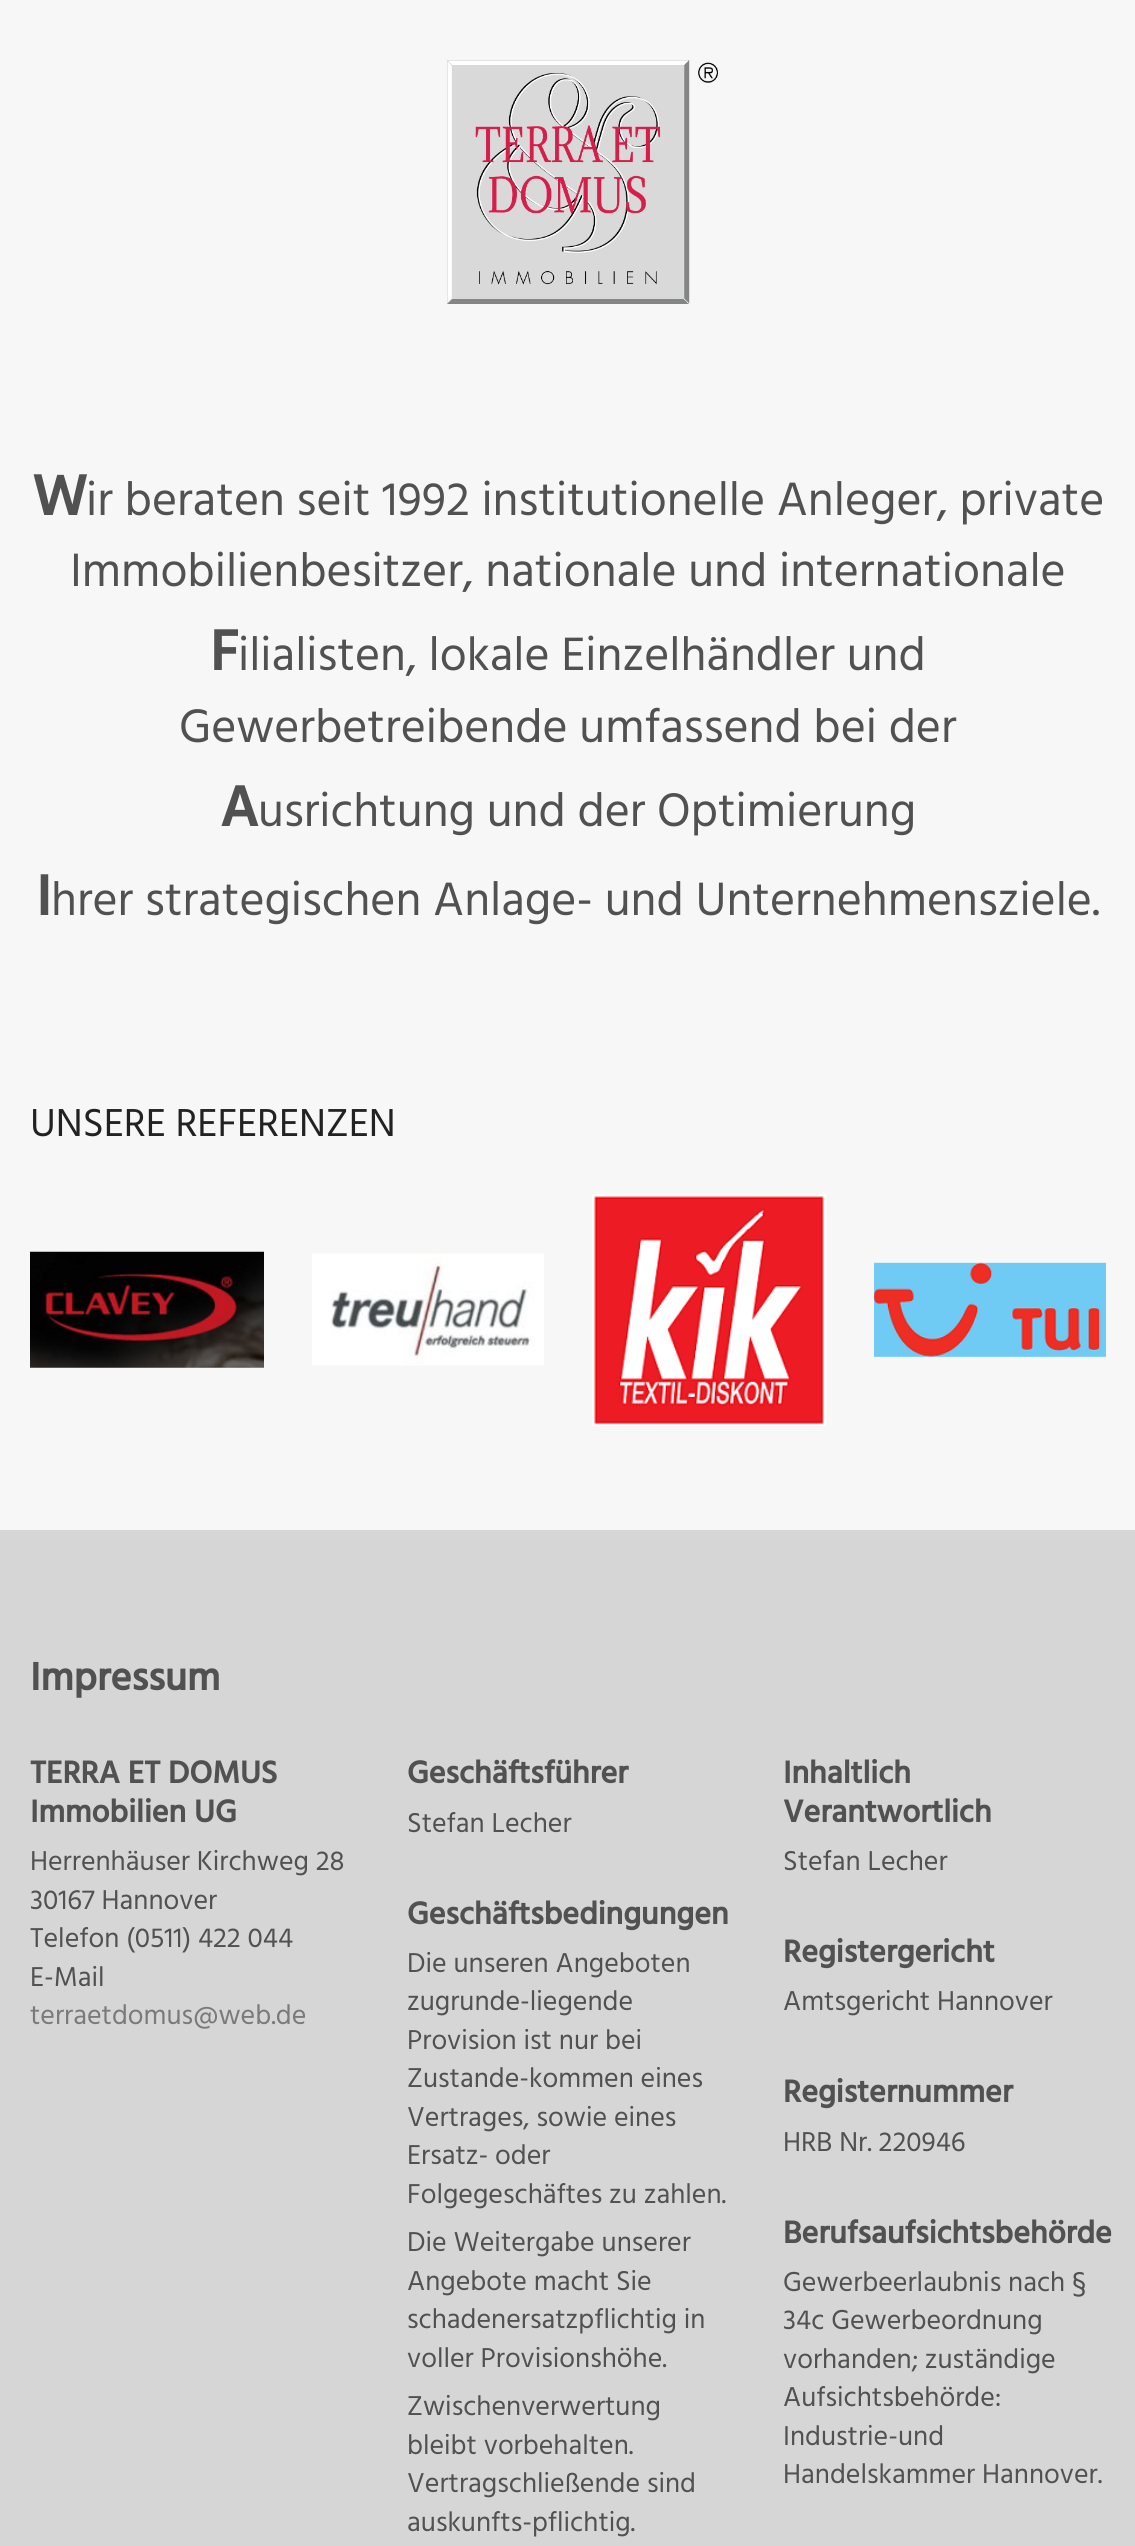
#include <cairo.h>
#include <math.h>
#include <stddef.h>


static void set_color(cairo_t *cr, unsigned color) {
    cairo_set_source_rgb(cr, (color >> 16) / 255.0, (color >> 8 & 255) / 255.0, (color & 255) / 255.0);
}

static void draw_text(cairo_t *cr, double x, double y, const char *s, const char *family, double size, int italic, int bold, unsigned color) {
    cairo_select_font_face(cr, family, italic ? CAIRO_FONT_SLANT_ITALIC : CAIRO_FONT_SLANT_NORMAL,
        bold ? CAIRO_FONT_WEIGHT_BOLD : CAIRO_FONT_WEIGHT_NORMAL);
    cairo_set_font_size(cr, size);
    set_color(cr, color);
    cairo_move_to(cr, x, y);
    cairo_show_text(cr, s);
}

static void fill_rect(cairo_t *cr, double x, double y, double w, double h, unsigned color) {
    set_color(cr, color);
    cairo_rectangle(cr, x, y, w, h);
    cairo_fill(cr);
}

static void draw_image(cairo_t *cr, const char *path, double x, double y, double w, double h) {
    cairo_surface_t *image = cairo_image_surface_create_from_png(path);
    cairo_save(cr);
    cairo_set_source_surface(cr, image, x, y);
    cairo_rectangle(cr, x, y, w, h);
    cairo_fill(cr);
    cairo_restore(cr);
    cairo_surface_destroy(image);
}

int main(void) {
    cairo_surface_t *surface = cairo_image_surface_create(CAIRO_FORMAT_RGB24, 1135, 2546);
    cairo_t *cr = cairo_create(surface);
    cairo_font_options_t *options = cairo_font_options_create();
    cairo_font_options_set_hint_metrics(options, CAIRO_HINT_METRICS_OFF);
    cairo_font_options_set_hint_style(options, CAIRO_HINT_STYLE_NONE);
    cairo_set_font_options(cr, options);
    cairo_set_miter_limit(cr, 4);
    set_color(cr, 0xF7F7F7);
    cairo_paint(cr);
    draw_image(cr, "assets/img1.png", 447, 60, 271, 244);
    draw_text(cr, 32, 515, "W", "Hind", 58, 0, 1, 0x515151);
    draw_text(cr, 86, 515, "ir beraten seit 1992 institutionelle Anleger, private", "Hind", 48, 0, 0, 0x515151);
    draw_text(cr, 70, 586, "Immobilienbesitzer, nationale und internationale", "Hind", 48, 0, 0, 0x515151);
    draw_text(cr, 210, 670, "F", "Hind", 58, 0, 1, 0x515151);
    draw_text(cr, 238, 670, "ilialisten, lokale Einzelhändler und", "Hind", 48, 0, 0, 0x515151);
    draw_text(cr, 179, 742, "Gewerbetreibende umfassend bei der", "Hind", 48, 0, 0, 0x515151);
    draw_text(cr, 220, 826, "A", "Hind", 58, 0, 1, 0x515151);
    draw_text(cr, 258, 826, "usrichtung und der Optimierung", "Hind", 48, 0, 0, 0x515151);
    draw_text(cr, 36, 915, "I", "Hind", 58, 0, 1, 0x515151);
    draw_text(cr, 51, 915, "hrer strategischen Anlage- und Unternehmensziele.", "Hind", 48, 0, 0, 0x515151);
    draw_text(cr, 30, 1136, "UNSERE REFERENZEN", "Hind", 40, 0, 0, 0x222222);
    draw_image(cr, "assets/img2.png", 30, 1251, 234, 117);
    draw_image(cr, "assets/img3.png", 312, 1253, 232, 113);
    draw_image(cr, "assets/img4.png", 592, 1194, 234, 232);
    draw_image(cr, "assets/img5.png", 874, 1262, 232, 95);
    fill_rect(cr, 0, 1530, 1135, 1016, 0xD6D6D6);
    draw_text(cr, 30, 1690, "Impressum", "Hind", 40, 0, 1, 0x515151);
    draw_text(cr, 30, 1783, "TERRA ET DOMUS", "Hind", 32, 0, 1, 0x515151);
    draw_text(cr, 30, 1822, "Immobilien UG", "Hind", 32, 0, 1, 0x515151);
    draw_text(cr, 30, 1870, "Herrenhäuser Kirchweg 28", "Hind", 28, 0, 0, 0x515151);
    draw_text(cr, 30, 1909, "30167 Hannover", "Hind", 28, 0, 0, 0x515151);
    draw_text(cr, 30, 1947, "Telefon (0511) 422 044", "Hind", 28, 0, 0, 0x515151);
    draw_text(cr, 30, 1986, "E-Mail", "Hind", 28, 0, 0, 0x515151);
    draw_text(cr, 30, 2024, "terraetdomus@web.de", "Hind", 28, 0, 0, 0x7A7A7A);
    draw_text(cr, 407, 1783, "Geschäftsführer", "Hind", 32, 0, 1, 0x515151);
    draw_text(cr, 407, 1832, "Stefan Lecher", "Hind", 28, 0, 0, 0x515151);
    draw_text(cr, 407, 1924, "Geschäftsbedingungen", "Hind", 32, 0, 1, 0x515151);
    draw_text(cr, 407, 1972, "Die unseren Angeboten", "Hind", 28, 0, 0, 0x515151);
    draw_text(cr, 407, 2010, "zugrunde-liegende", "Hind", 28, 0, 0, 0x515151);
    draw_text(cr, 407, 2049, "Provision ist nur bei", "Hind", 28, 0, 0, 0x515151);
    draw_text(cr, 407, 2087, "Zustande-kommen eines", "Hind", 28, 0, 0, 0x515151);
    draw_text(cr, 407, 2126, "Vertrages, sowie eines", "Hind", 28, 0, 0, 0x515151);
    draw_text(cr, 407, 2164, "Ersatz- oder", "Hind", 28, 0, 0, 0x515151);
    draw_text(cr, 407, 2203, "Folgegeschäftes zu zahlen.", "Hind", 28, 0, 0, 0x515151);
    draw_text(cr, 407, 2251, "Die Weitergabe unserer", "Hind", 28, 0, 0, 0x515151);
    draw_text(cr, 407, 2290, "Angebote macht Sie", "Hind", 28, 0, 0, 0x515151);
    draw_text(cr, 407, 2328, "schadenersatzpflichtig in", "Hind", 28, 0, 0, 0x515151);
    draw_text(cr, 407, 2367, "voller Provisionshöhe.", "Hind", 28, 0, 0, 0x515151);
    draw_text(cr, 407, 2415, "Zwischenverwertung", "Hind", 28, 0, 0, 0x515151);
    draw_text(cr, 407, 2454, "bleibt vorbehalten.", "Hind", 28, 0, 0, 0x515151);
    draw_text(cr, 407, 2492, "Vertragschließende sind", "Hind", 28, 0, 0, 0x515151);
    draw_text(cr, 407, 2531, "auskunfts-pflichtig.", "Hind", 28, 0, 0, 0x515151);
    draw_text(cr, 783, 1783, "Inhaltlich", "Hind", 32, 0, 1, 0x515151);
    draw_text(cr, 783, 1822, "Verantwortlich", "Hind", 32, 0, 1, 0x515151);
    draw_text(cr, 783, 1870, "Stefan Lecher", "Hind", 28, 0, 0, 0x515151);
    draw_text(cr, 783, 1962, "Registergericht", "Hind", 32, 0, 1, 0x515151);
    draw_text(cr, 783, 2010, "Amtsgericht Hannover", "Hind", 28, 0, 0, 0x515151);
    draw_text(cr, 783, 2102, "Registernummer", "Hind", 32, 0, 1, 0x515151);
    draw_text(cr, 783, 2151, "HRB Nr. 220946", "Hind", 28, 0, 0, 0x515151);
    draw_text(cr, 783, 2243, "Berufsaufsichtsbehörde", "Hind", 32, 0, 1, 0x515151);
    draw_text(cr, 783, 2291, "Gewerbeerlaubnis nach §", "Hind", 28, 0, 0, 0x515151);
    draw_text(cr, 783, 2329, "34c Gewerbeordnung", "Hind", 28, 0, 0, 0x515151);
    draw_text(cr, 783, 2368, "vorhanden; zuständige", "Hind", 28, 0, 0, 0x515151);
    draw_text(cr, 783, 2406, "Aufsichtsbehörde:", "Hind", 28, 0, 0, 0x515151);
    draw_text(cr, 783, 2445, "Industrie-und", "Hind", 28, 0, 0, 0x515151);
    draw_text(cr, 783, 2483, "Handelskammer Hannover.", "Hind", 28, 0, 0, 0x515151);
    cairo_surface_write_to_png(surface, "output.png");
    cairo_font_options_destroy(options);
    cairo_destroy(cr);
    cairo_surface_destroy(surface);
    return 0;
}
